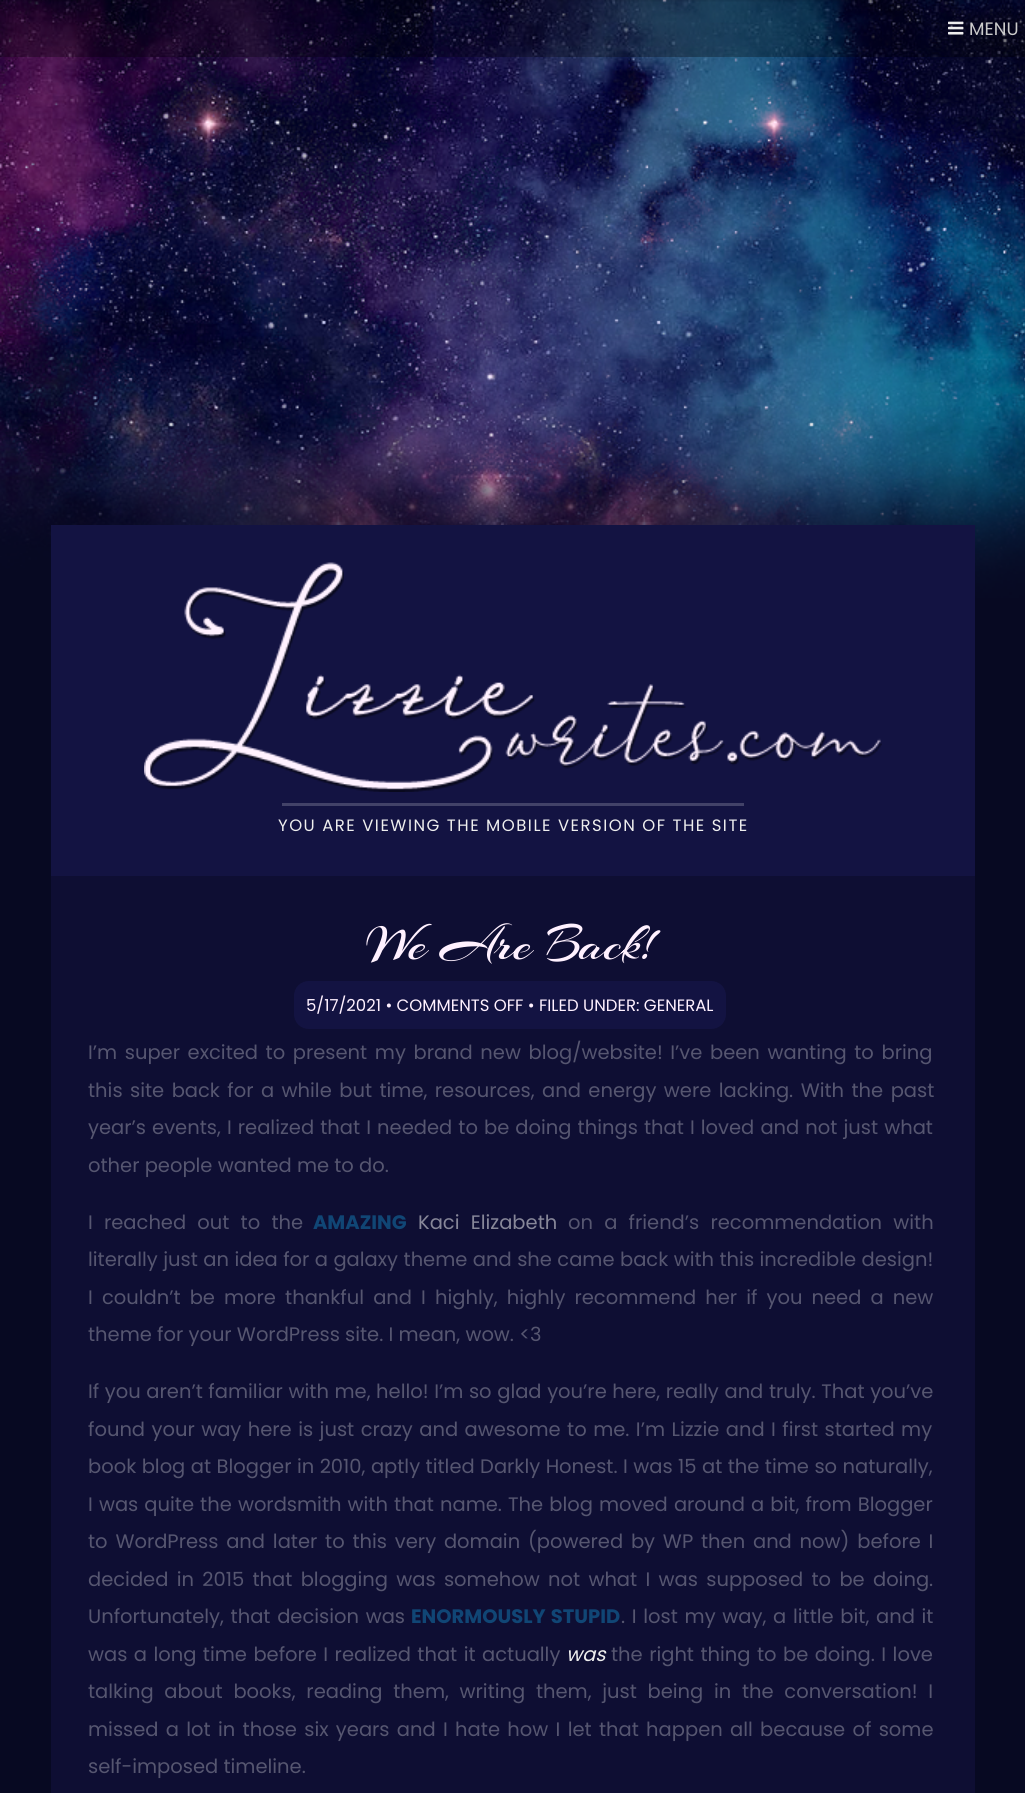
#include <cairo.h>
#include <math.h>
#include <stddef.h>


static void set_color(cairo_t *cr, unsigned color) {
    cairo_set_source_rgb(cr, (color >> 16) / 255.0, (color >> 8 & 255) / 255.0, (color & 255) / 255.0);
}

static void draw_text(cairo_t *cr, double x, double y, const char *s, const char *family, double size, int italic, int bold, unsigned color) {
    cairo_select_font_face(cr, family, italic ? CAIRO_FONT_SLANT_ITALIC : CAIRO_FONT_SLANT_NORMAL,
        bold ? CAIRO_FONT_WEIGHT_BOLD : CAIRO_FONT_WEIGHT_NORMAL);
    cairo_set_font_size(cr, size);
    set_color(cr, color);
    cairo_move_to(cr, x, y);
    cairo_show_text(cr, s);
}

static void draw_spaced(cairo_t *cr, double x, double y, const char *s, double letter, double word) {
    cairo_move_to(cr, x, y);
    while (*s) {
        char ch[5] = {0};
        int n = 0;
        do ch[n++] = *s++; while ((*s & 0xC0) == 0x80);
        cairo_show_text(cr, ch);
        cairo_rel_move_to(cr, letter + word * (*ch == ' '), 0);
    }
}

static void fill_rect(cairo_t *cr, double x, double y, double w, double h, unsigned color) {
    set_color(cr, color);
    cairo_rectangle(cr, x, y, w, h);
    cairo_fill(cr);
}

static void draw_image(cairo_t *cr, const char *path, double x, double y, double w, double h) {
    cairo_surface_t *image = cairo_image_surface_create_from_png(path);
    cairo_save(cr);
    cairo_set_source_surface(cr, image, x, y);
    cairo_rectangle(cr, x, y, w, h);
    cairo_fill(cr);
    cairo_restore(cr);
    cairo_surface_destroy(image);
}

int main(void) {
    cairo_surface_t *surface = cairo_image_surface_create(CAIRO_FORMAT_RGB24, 1025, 1793);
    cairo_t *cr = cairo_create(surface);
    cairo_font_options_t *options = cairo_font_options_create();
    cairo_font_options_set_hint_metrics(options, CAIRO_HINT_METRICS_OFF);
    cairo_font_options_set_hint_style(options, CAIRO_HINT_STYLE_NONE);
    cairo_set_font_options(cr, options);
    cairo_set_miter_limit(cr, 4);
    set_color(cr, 0x070922);
    cairo_paint(cr);
    draw_image(cr, "assets/img1.png", 0, 0, 1025, 598);
    cairo_set_source_rgba(cr, 0, 0, 0, 0.3);
    cairo_rectangle(cr, 0, 0, 1025, 57);
    cairo_fill(cr);
    draw_image(cr, "assets/img2.png", 948, 21, 16, 14);
    draw_text(cr, 969, 35, "MENU", "Poppins", 18, 0, 0, 0xCBCBCB);
    fill_rect(cr, 51, 876, 924, 917, 0x0E0E33);
    fill_rect(cr, 51, 525, 924, 351, 0x131342);
    draw_image(cr, "assets/img3.png", 144, 562, 738, 230);
    fill_rect(cr, 282, 803, 462, 3, 0x424268);
    cairo_set_font_size(cr, 16.5);
    set_color(cr, 0xEEEEEE);
    draw_spaced(cr, 278, 831, "YOU ARE VIEWING THE MOBILE VERSION OF THE SITE", 1.5, 0);
    draw_text(cr, 366, 959, "We Are Back!", "Arizonia", 52.5, 0, 0, 0xFFF1FF);
    set_color(cr, 0x131342);
    cairo_new_path(cr);
    cairo_move_to(cr, 309, 981);
    cairo_line_to(cr, 398, 981);
    cairo_line_to(cr, 398, 1029);
    cairo_line_to(cr, 309, 1029);
    cairo_curve_to(cr, 300.5, 1029, 294, 1022.5, 294, 1014);
    cairo_line_to(cr, 294, 996);
    cairo_curve_to(cr, 294, 987.5, 300.5, 981, 309, 981);
    cairo_close_path(cr);
    cairo_fill(cr);
    fill_rect(cr, 398, 981, 247, 48, 0x131342);
    cairo_new_path(cr);
    cairo_move_to(cr, 645, 981);
    cairo_line_to(cr, 711, 981);
    cairo_curve_to(cr, 719.5, 981, 726, 987.5, 726, 996);
    cairo_line_to(cr, 726, 1014);
    cairo_curve_to(cr, 726, 1022.5, 719.5, 1029, 711, 1029);
    cairo_line_to(cr, 645, 1029);
    cairo_close_path(cr);
    cairo_fill(cr);
    draw_text(cr, 306, 1011, "5/17/2021 • COMMENTS OFF • FILED UNDER: GENERAL", "Poppins", 16.5, 0, 0, 0xFFF1FF);
    cairo_set_font_size(cr, 19.5);
    set_color(cr, 0x565670);
    draw_spaced(cr, 88, 1059, "I’m super excited to present my brand new blog/website! I’ve been wanting to bring", 0, 2.4);
    draw_spaced(cr, 88, 1097, "this site back for a while but time, resources, and energy were lacking. With the past", 0, 2.25);
    draw_spaced(cr, 88, 1134, "year’s events, I realized that I needed to be doing things that I loved and not just what", 0, 0.9);
    draw_text(cr, 88, 1172, "other people wanted me to do.", "Poppins", 19.5, 0, 0, 0x565670);
    draw_spaced(cr, 88, 1229, "I reached out to the", 0, 6);
    draw_text(cr, 313, 1229, "AMAZING", "Poppins", 19.5, 0, 1, 0x104675);
    cairo_select_font_face(cr, "Poppins", CAIRO_FONT_SLANT_NORMAL, CAIRO_FONT_WEIGHT_NORMAL);
    set_color(cr, 0x878799);
    draw_spaced(cr, 418, 1229, "Kaci Elizabeth", 0, 6);
    set_color(cr, 0x565670);
    draw_spaced(cr, 568, 1229, "on a friend’s recommendation with", 0, 6);
    draw_spaced(cr, 88, 1266, "literally just an idea for a galaxy theme and she came back with this incredible design!", 0, 0.25);
    draw_spaced(cr, 88, 1304, "I couldn’t be more thankful and I highly, highly recommend her if you need a new", 0, 3.9);
    draw_text(cr, 88, 1341, "theme for your WordPress site. I mean, wow. <3", "Poppins", 19.5, 0, 0, 0x565670);
    draw_spaced(cr, 88, 1398, "If you aren’t familiar with me, hello! I’m so glad you’re here, really and truly. That you’ve", 0, 0.4);
    draw_spaced(cr, 88, 1436, "found your way here is just crazy and awesome to me. I’m Lizzie and I first started my", 0, 1.25);
    draw_spaced(cr, 88, 1473, "book blog at Blogger in 2010, aptly titled Darkly Honest. I was 15 at the time so naturally,", 0, 0.25);
    draw_spaced(cr, 88, 1511, "I was quite the wordsmith with that name. The blog moved around a bit, from Blogger", 0, 0.9);
    draw_spaced(cr, 88, 1548, "to WordPress and later to this very domain (powered by WP then and now) before I", 0, 2.6);
    draw_spaced(cr, 88, 1586, "decided in 2015 that blogging was somehow not what I was supposed to be doing.", 0, 3.1);
    draw_spaced(cr, 88, 1623, "Unfortunately, that decision was", 0, 1.5);
    cairo_select_font_face(cr, "Poppins", CAIRO_FONT_SLANT_NORMAL, CAIRO_FONT_WEIGHT_BOLD);
    set_color(cr, 0x104675);
    draw_spaced(cr, 411, 1623, "ENORMOUSLY STUPID", 0, 1);
    cairo_select_font_face(cr, "Poppins", CAIRO_FONT_SLANT_NORMAL, CAIRO_FONT_WEIGHT_NORMAL);
    set_color(cr, 0x565670);
    draw_spaced(cr, 621, 1623, ". I lost my way, a little bit, and it", 0, 1.5);
    draw_spaced(cr, 88, 1661, "was a long time before I realized that it actually", 0, 1.25);
    draw_text(cr, 566, 1661, "was", "Poppins", 19.5, 1, 0, 0xEEEEEE);
    cairo_select_font_face(cr, "Poppins", CAIRO_FONT_SLANT_NORMAL, CAIRO_FONT_WEIGHT_NORMAL);
    set_color(cr, 0x565670);
    draw_spaced(cr, 611, 1661, "the right thing to be doing. I love", 0, 1.25);
    draw_spaced(cr, 88, 1698, "talking about books, reading them, writing them, just being in the conversation! I", 0, 5.5);
    draw_spaced(cr, 88, 1736, "missed a lot in those six years and I hate how I let that happen all because of some", 0, 2.1);
    draw_text(cr, 88, 1773, "self-imposed timeline.", "Poppins", 19.5, 0, 0, 0x565670);
    cairo_surface_write_to_png(surface, "output.png");
    cairo_font_options_destroy(options);
    cairo_destroy(cr);
    cairo_surface_destroy(surface);
    return 0;
}
